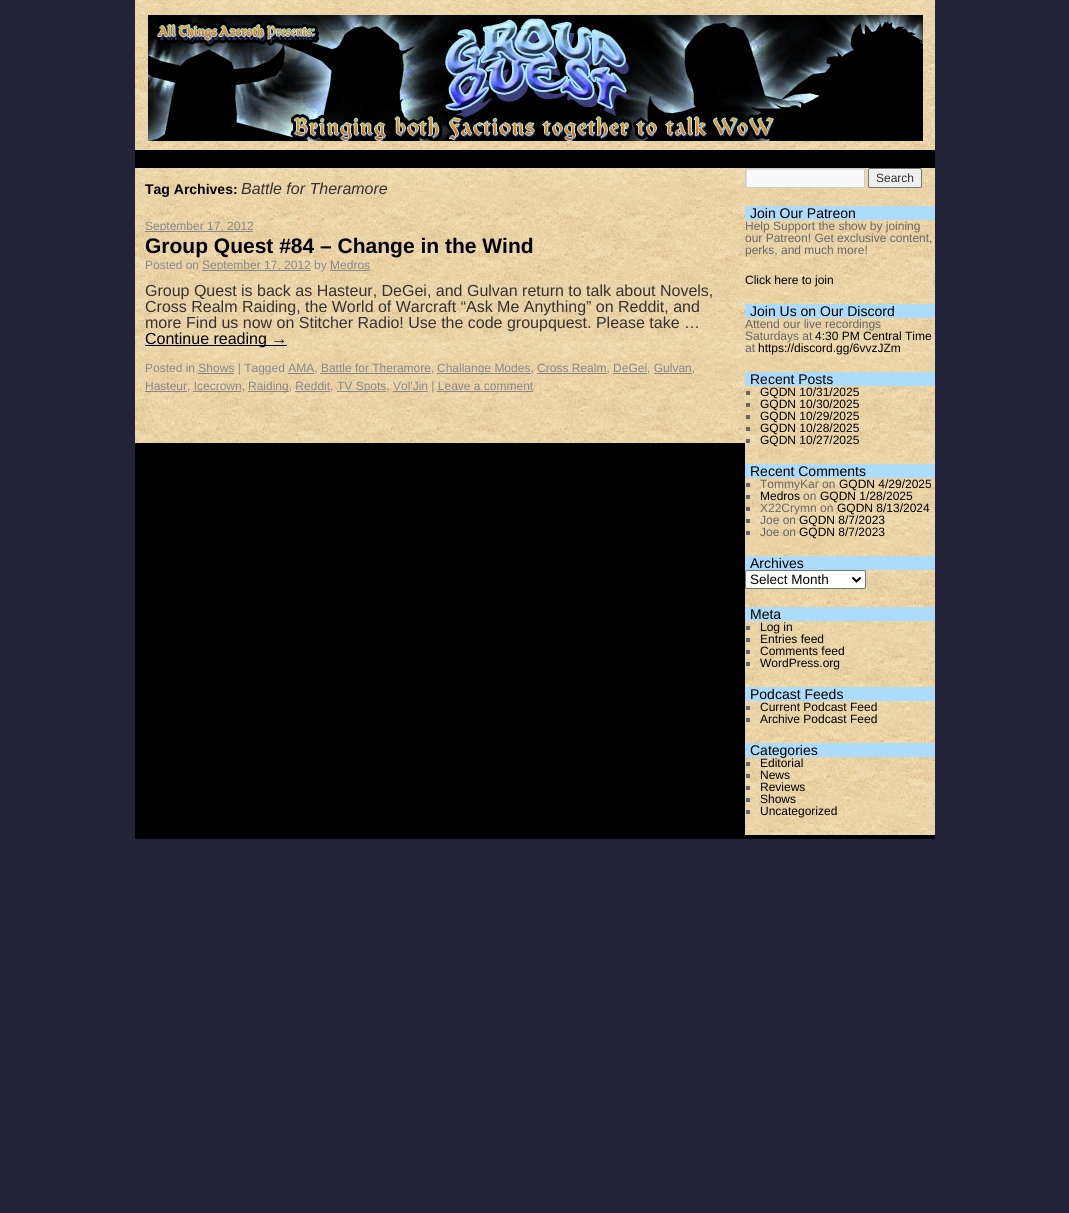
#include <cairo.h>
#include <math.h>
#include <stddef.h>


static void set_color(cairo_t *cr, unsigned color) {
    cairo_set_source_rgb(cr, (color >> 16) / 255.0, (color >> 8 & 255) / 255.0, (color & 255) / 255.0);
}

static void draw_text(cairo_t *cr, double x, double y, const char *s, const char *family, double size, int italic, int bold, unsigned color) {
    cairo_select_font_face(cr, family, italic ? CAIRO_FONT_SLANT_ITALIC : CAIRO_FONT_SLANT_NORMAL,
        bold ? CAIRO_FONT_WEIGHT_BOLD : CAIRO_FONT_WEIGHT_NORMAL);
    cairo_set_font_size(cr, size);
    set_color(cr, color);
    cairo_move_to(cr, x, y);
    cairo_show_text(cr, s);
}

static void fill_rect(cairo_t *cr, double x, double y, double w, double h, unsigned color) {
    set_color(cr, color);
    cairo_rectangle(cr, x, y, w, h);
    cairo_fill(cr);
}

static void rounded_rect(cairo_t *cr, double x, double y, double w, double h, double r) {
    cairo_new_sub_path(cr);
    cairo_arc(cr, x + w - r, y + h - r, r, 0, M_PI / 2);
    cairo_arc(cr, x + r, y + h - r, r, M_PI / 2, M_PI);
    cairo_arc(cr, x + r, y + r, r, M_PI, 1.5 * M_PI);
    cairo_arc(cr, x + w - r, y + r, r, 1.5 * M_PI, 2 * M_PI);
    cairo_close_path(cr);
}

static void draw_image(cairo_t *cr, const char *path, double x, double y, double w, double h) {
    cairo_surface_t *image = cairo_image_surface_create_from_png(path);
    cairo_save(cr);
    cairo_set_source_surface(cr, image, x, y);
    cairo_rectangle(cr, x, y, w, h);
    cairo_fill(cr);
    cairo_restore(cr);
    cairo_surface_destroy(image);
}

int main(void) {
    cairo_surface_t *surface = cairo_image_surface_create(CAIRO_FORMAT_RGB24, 1069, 1213);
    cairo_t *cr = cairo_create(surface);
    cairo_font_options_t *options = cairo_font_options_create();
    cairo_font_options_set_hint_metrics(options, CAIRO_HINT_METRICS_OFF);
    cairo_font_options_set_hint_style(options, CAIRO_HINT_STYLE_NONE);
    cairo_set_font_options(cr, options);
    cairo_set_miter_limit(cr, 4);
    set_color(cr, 0x222239);
    cairo_paint(cr);
    fill_rect(cr, 135, 150, 800, 689, 0x000000);
    draw_image(cr, "assets/img1.png", 135, 0, 800, 150);
    draw_image(cr, "assets/img2.png", 148, 15, 775, 126);
    draw_image(cr, "assets/img3.png", 135, 168, 610, 275);
    draw_text(cr, 145, 194, "Tag Archives:", "Liberation Sans", 14, 0, 1, 0x000000);
    draw_text(cr, 241, 194, "Battle for Theramore", "Liberation Sans", 16, 1, 0, 0x333333);
    fill_rect(cr, 145, 231, 108, 1, 0x888888);
    draw_text(cr, 145, 230, "September 17, 2012", "Liberation Sans", 12, 0, 0, 0x888888);
    draw_text(cr, 145, 253, "Group Quest #84 – Change in the Wind", "Liberation Sans", 21, 0, 1, 0x000000);
    draw_text(cr, 145, 269, "Posted on", "Liberation Sans", 12, 0, 0, 0x888888);
    fill_rect(cr, 202, 270, 109, 1, 0x888888);
    draw_text(cr, 202, 269, "September 17, 2012 by Medros", "Liberation Sans", 12, 0, 0, 0x888888);
    fill_rect(cr, 330, 270, 40, 1, 0x888888);
    draw_text(cr, 145, 296, "Group Quest is back as Hasteur, DeGei, and Gulvan return to talk about Novels,", "Liberation Sans", 16, 0, 0, 0x333333);
    draw_text(cr, 145, 312, "Cross Realm Raiding, the World of Warcraft “Ask Me Anything” on Reddit, and", "Liberation Sans", 16, 0, 0, 0x333333);
    draw_text(cr, 145, 328, "more Find us now on Stitcher Radio! Use the code groupquest. Please take …", "Liberation Sans", 16, 0, 0, 0x333333);
    fill_rect(cr, 145, 345, 142, 1, 0x000000);
    draw_text(cr, 145, 344, "Continue reading →", "Liberation Sans", 16, 0, 0, 0x000000);
    draw_text(cr, 145, 372, "Posted in Shows | Tagged AMA, Battle for Theramore,", "Liberation Sans", 12, 0, 0, 0x888888);
    fill_rect(cr, 198, 373, 36, 1, 0x888888);
    fill_rect(cr, 437, 373, 94, 1, 0x888888);
    draw_text(cr, 437, 372, "Challange Modes, Cross Realm, DeGei, Gulvan,", "Liberation Sans", 12, 0, 0, 0x888888);
    fill_rect(cr, 320, 373, 111, 1, 0x888888);
    fill_rect(cr, 537, 373, 70, 1, 0x888888);
    fill_rect(cr, 613, 373, 34, 1, 0x888888);
    fill_rect(cr, 654, 373, 38, 1, 0x888888);
    fill_rect(cr, 145, 391, 42, 1, 0x888888);
    draw_text(cr, 145, 390, "Hasteur, Icecrown,", "Liberation Sans", 12, 0, 0, 0x888888);
    fill_rect(cr, 193, 391, 48, 1, 0x888888);
    fill_rect(cr, 248, 391, 41, 1, 0x888888);
    draw_text(cr, 248, 390, "Raiding, Reddit,", "Liberation Sans", 12, 0, 0, 0x888888);
    fill_rect(cr, 288, 373, 26, 1, 0x888888);
    fill_rect(cr, 295, 391, 35, 1, 0x888888);
    fill_rect(cr, 337, 391, 49, 1, 0x888888);
    draw_text(cr, 337, 390, "TV Spots, Vol'Jin | Leave a comment", "Liberation Sans", 12, 0, 0, 0x888888);
    fill_rect(cr, 393, 391, 35, 1, 0x888888);
    fill_rect(cr, 437, 391, 96, 1, 0x888888);
    draw_image(cr, "assets/img4.png", 745, 168, 190, 667);
    fill_rect(cr, 747, 170, 117, 17, 0xF9F9F9);
    cairo_save(cr);
    cairo_rectangle(cr, 746, 169, 118, 18);
    cairo_clip(cr);
    set_color(cr, 0xE0E0E0);
    cairo_set_fill_rule(cr, CAIRO_FILL_RULE_EVEN_ODD);
    cairo_new_path(cr);
    cairo_move_to(cr, 647, 70);
    cairo_line_to(cr, 963, 70);
    cairo_line_to(cr, 963, 286);
    cairo_line_to(cr, 647, 286);
    cairo_close_path(cr);
    cairo_move_to(cr, 747, 170);
    cairo_line_to(cr, 865, 170);
    cairo_line_to(cr, 865, 188);
    cairo_line_to(cr, 747, 188);
    cairo_close_path(cr);
    cairo_fill(cr);
    cairo_restore(cr);
    cairo_rectangle(cr, 745.5, 168.5, 119, 19);
    set_color(cr, 0xCCCCCC);
    cairo_set_line_width(cr, 1);
    cairo_stroke(cr);
    set_color(cr, 0xEFEFEF);
    rounded_rect(cr, 868.5, 168.5, 53, 19, 1.5);
    cairo_fill_preserve(cr);
    set_color(cr, 0x767676);
    cairo_stroke(cr);
    draw_text(cr, 876, 182, "Search", "Liberation Sans", 12, 0, 0, 0x333333);
    fill_rect(cr, 745, 206, 190, 14, 0xADDCFA);
    draw_text(cr, 750, 218, "Join Our Patreon", "Liberation Sans", 14, 0, 0, 0x000000);
    draw_text(cr, 745, 230, "Help Support the show by joining", "Liberation Sans", 12, 0, 0, 0x666666);
    draw_text(cr, 745, 242, "our Patreon! Get exclusive content,", "Liberation Sans", 12, 0, 0, 0x666666);
    draw_text(cr, 745, 254, "perks, and much more!", "Liberation Sans", 12, 0, 0, 0x666666);
    draw_text(cr, 745, 284, "Click here to join", "Liberation Sans", 12, 0, 0, 0x000000);
    fill_rect(cr, 745, 304, 190, 14, 0xADDCFA);
    draw_text(cr, 750, 316, "Join Us on Our Discord", "Liberation Sans", 14, 0, 0, 0x000000);
    draw_text(cr, 745, 328, "Attend our live recordings", "Liberation Sans", 12, 0, 0, 0x666666);
    draw_text(cr, 745, 340, "Saturdays at", "Liberation Sans", 12, 0, 0, 0x666666);
    draw_text(cr, 815, 340, "4:30 PM Central Time", "Liberation Sans", 12, 0, 0, 0x000000);
    draw_text(cr, 745, 352, "at", "Liberation Sans", 12, 0, 0, 0x666666);
    draw_text(cr, 758, 352, "https://discord.gg/6vvzJZm", "Liberation Sans", 12, 0, 0, 0x000000);
    fill_rect(cr, 745, 372, 190, 14, 0xADDCFA);
    draw_text(cr, 750, 384, "Recent Posts", "Liberation Sans", 14, 0, 0, 0x000000);
    fill_rect(cr, 746, 391, 4, 4, 0x666666);
    draw_text(cr, 760, 396, "GQDN 10/31/2025", "Liberation Sans", 12, 0, 0, 0x000000);
    fill_rect(cr, 746, 403, 4, 4, 0x666666);
    draw_text(cr, 760, 408, "GQDN 10/30/2025", "Liberation Sans", 12, 0, 0, 0x000000);
    fill_rect(cr, 746, 415, 4, 4, 0x666666);
    draw_text(cr, 760, 420, "GQDN 10/29/2025", "Liberation Sans", 12, 0, 0, 0x000000);
    fill_rect(cr, 746, 427, 4, 4, 0x666666);
    draw_text(cr, 760, 432, "GQDN 10/28/2025", "Liberation Sans", 12, 0, 0, 0x000000);
    fill_rect(cr, 746, 439, 4, 4, 0x666666);
    draw_text(cr, 760, 444, "GQDN 10/27/2025", "Liberation Sans", 12, 0, 0, 0x000000);
    fill_rect(cr, 745, 464, 190, 14, 0xADDCFA);
    draw_text(cr, 750, 476, "Recent Comments", "Liberation Sans", 14, 0, 0, 0x000000);
    fill_rect(cr, 746, 483, 4, 4, 0x666666);
    draw_text(cr, 760, 488, "TommyKar on", "Liberation Sans", 12, 0, 0, 0x666666);
    draw_text(cr, 839, 488, "GQDN 4/29/2025", "Liberation Sans", 12, 0, 0, 0x000000);
    fill_rect(cr, 746, 495, 4, 4, 0x666666);
    draw_text(cr, 760, 500, "Medros", "Liberation Sans", 12, 0, 0, 0x000000);
    draw_text(cr, 803, 500, "on", "Liberation Sans", 12, 0, 0, 0x666666);
    draw_text(cr, 820, 500, "GQDN 1/28/2025", "Liberation Sans", 12, 0, 0, 0x000000);
    fill_rect(cr, 746, 507, 4, 4, 0x666666);
    draw_text(cr, 760, 512, "X22Crymn on", "Liberation Sans", 12, 0, 0, 0x666666);
    draw_text(cr, 837, 512, "GQDN 8/13/2024", "Liberation Sans", 12, 0, 0, 0x000000);
    fill_rect(cr, 746, 519, 4, 4, 0x666666);
    draw_text(cr, 760, 524, "Joe on", "Liberation Sans", 12, 0, 0, 0x666666);
    draw_text(cr, 799, 524, "GQDN 8/7/2023", "Liberation Sans", 12, 0, 0, 0x000000);
    fill_rect(cr, 746, 531, 4, 4, 0x666666);
    draw_text(cr, 760, 536, "Joe on", "Liberation Sans", 12, 0, 0, 0x666666);
    draw_text(cr, 799, 536, "GQDN 8/7/2023", "Liberation Sans", 12, 0, 0, 0x000000);
    fill_rect(cr, 745, 556, 190, 14, 0xADDCFA);
    draw_text(cr, 750, 568, "Archives", "Liberation Sans", 14, 0, 0, 0x000000);
    set_color(cr, 0xFFFFFF);
    rounded_rect(cr, 745.5, 570.5, 120, 18, 1.5);
    cairo_fill_preserve(cr);
    set_color(cr, 0x767676);
    cairo_stroke(cr);
    cairo_new_path(cr);
    cairo_move_to(cr, 852.5, 577.5);
    cairo_line_to(cr, 856.5, 581.5);
    cairo_line_to(cr, 860.5, 577.5);
    set_color(cr, 0x000000);
    cairo_set_line_width(cr, 2);
    cairo_stroke(cr);
    draw_text(cr, 750, 584, "Select Month", "Liberation Sans", 13.5, 0, 0, 0x000000);
    fill_rect(cr, 745, 607, 190, 14, 0xADDCFA);
    draw_text(cr, 750, 619, "Meta", "Liberation Sans", 14, 0, 0, 0x000000);
    fill_rect(cr, 746, 626, 4, 4, 0x666666);
    draw_text(cr, 760, 631, "Log in", "Liberation Sans", 12, 0, 0, 0x000000);
    fill_rect(cr, 746, 638, 4, 4, 0x666666);
    draw_text(cr, 760, 643, "Entries feed", "Liberation Sans", 12, 0, 0, 0x000000);
    fill_rect(cr, 746, 650, 4, 4, 0x666666);
    draw_text(cr, 760, 655, "Comments feed", "Liberation Sans", 12, 0, 0, 0x000000);
    fill_rect(cr, 746, 662, 4, 4, 0x666666);
    draw_text(cr, 760, 667, "WordPress.org", "Liberation Sans", 12, 0, 0, 0x000000);
    fill_rect(cr, 745, 687, 190, 14, 0xADDCFA);
    draw_text(cr, 750, 699, "Podcast Feeds", "Liberation Sans", 14, 0, 0, 0x000000);
    fill_rect(cr, 746, 706, 4, 4, 0x666666);
    draw_text(cr, 760, 711, "Current Podcast Feed", "Liberation Sans", 12, 0, 0, 0x000000);
    fill_rect(cr, 746, 718, 4, 4, 0x666666);
    draw_text(cr, 760, 723, "Archive Podcast Feed", "Liberation Sans", 12, 0, 0, 0x000000);
    fill_rect(cr, 745, 743, 190, 14, 0xADDCFA);
    draw_text(cr, 750, 755, "Categories", "Liberation Sans", 14, 0, 0, 0x000000);
    fill_rect(cr, 746, 762, 4, 4, 0x666666);
    draw_text(cr, 760, 767, "Editorial", "Liberation Sans", 12, 0, 0, 0x000000);
    fill_rect(cr, 746, 774, 4, 4, 0x666666);
    draw_text(cr, 760, 779, "News", "Liberation Sans", 12, 0, 0, 0x000000);
    fill_rect(cr, 746, 786, 4, 4, 0x666666);
    draw_text(cr, 760, 791, "Reviews", "Liberation Sans", 12, 0, 0, 0x000000);
    fill_rect(cr, 746, 798, 4, 4, 0x666666);
    draw_text(cr, 760, 803, "Shows", "Liberation Sans", 12, 0, 0, 0x000000);
    fill_rect(cr, 746, 810, 4, 4, 0x666666);
    draw_text(cr, 760, 815, "Uncategorized", "Liberation Sans", 12, 0, 0, 0x000000);
    cairo_surface_write_to_png(surface, "output.png");
    cairo_font_options_destroy(options);
    cairo_destroy(cr);
    cairo_surface_destroy(surface);
    return 0;
}
